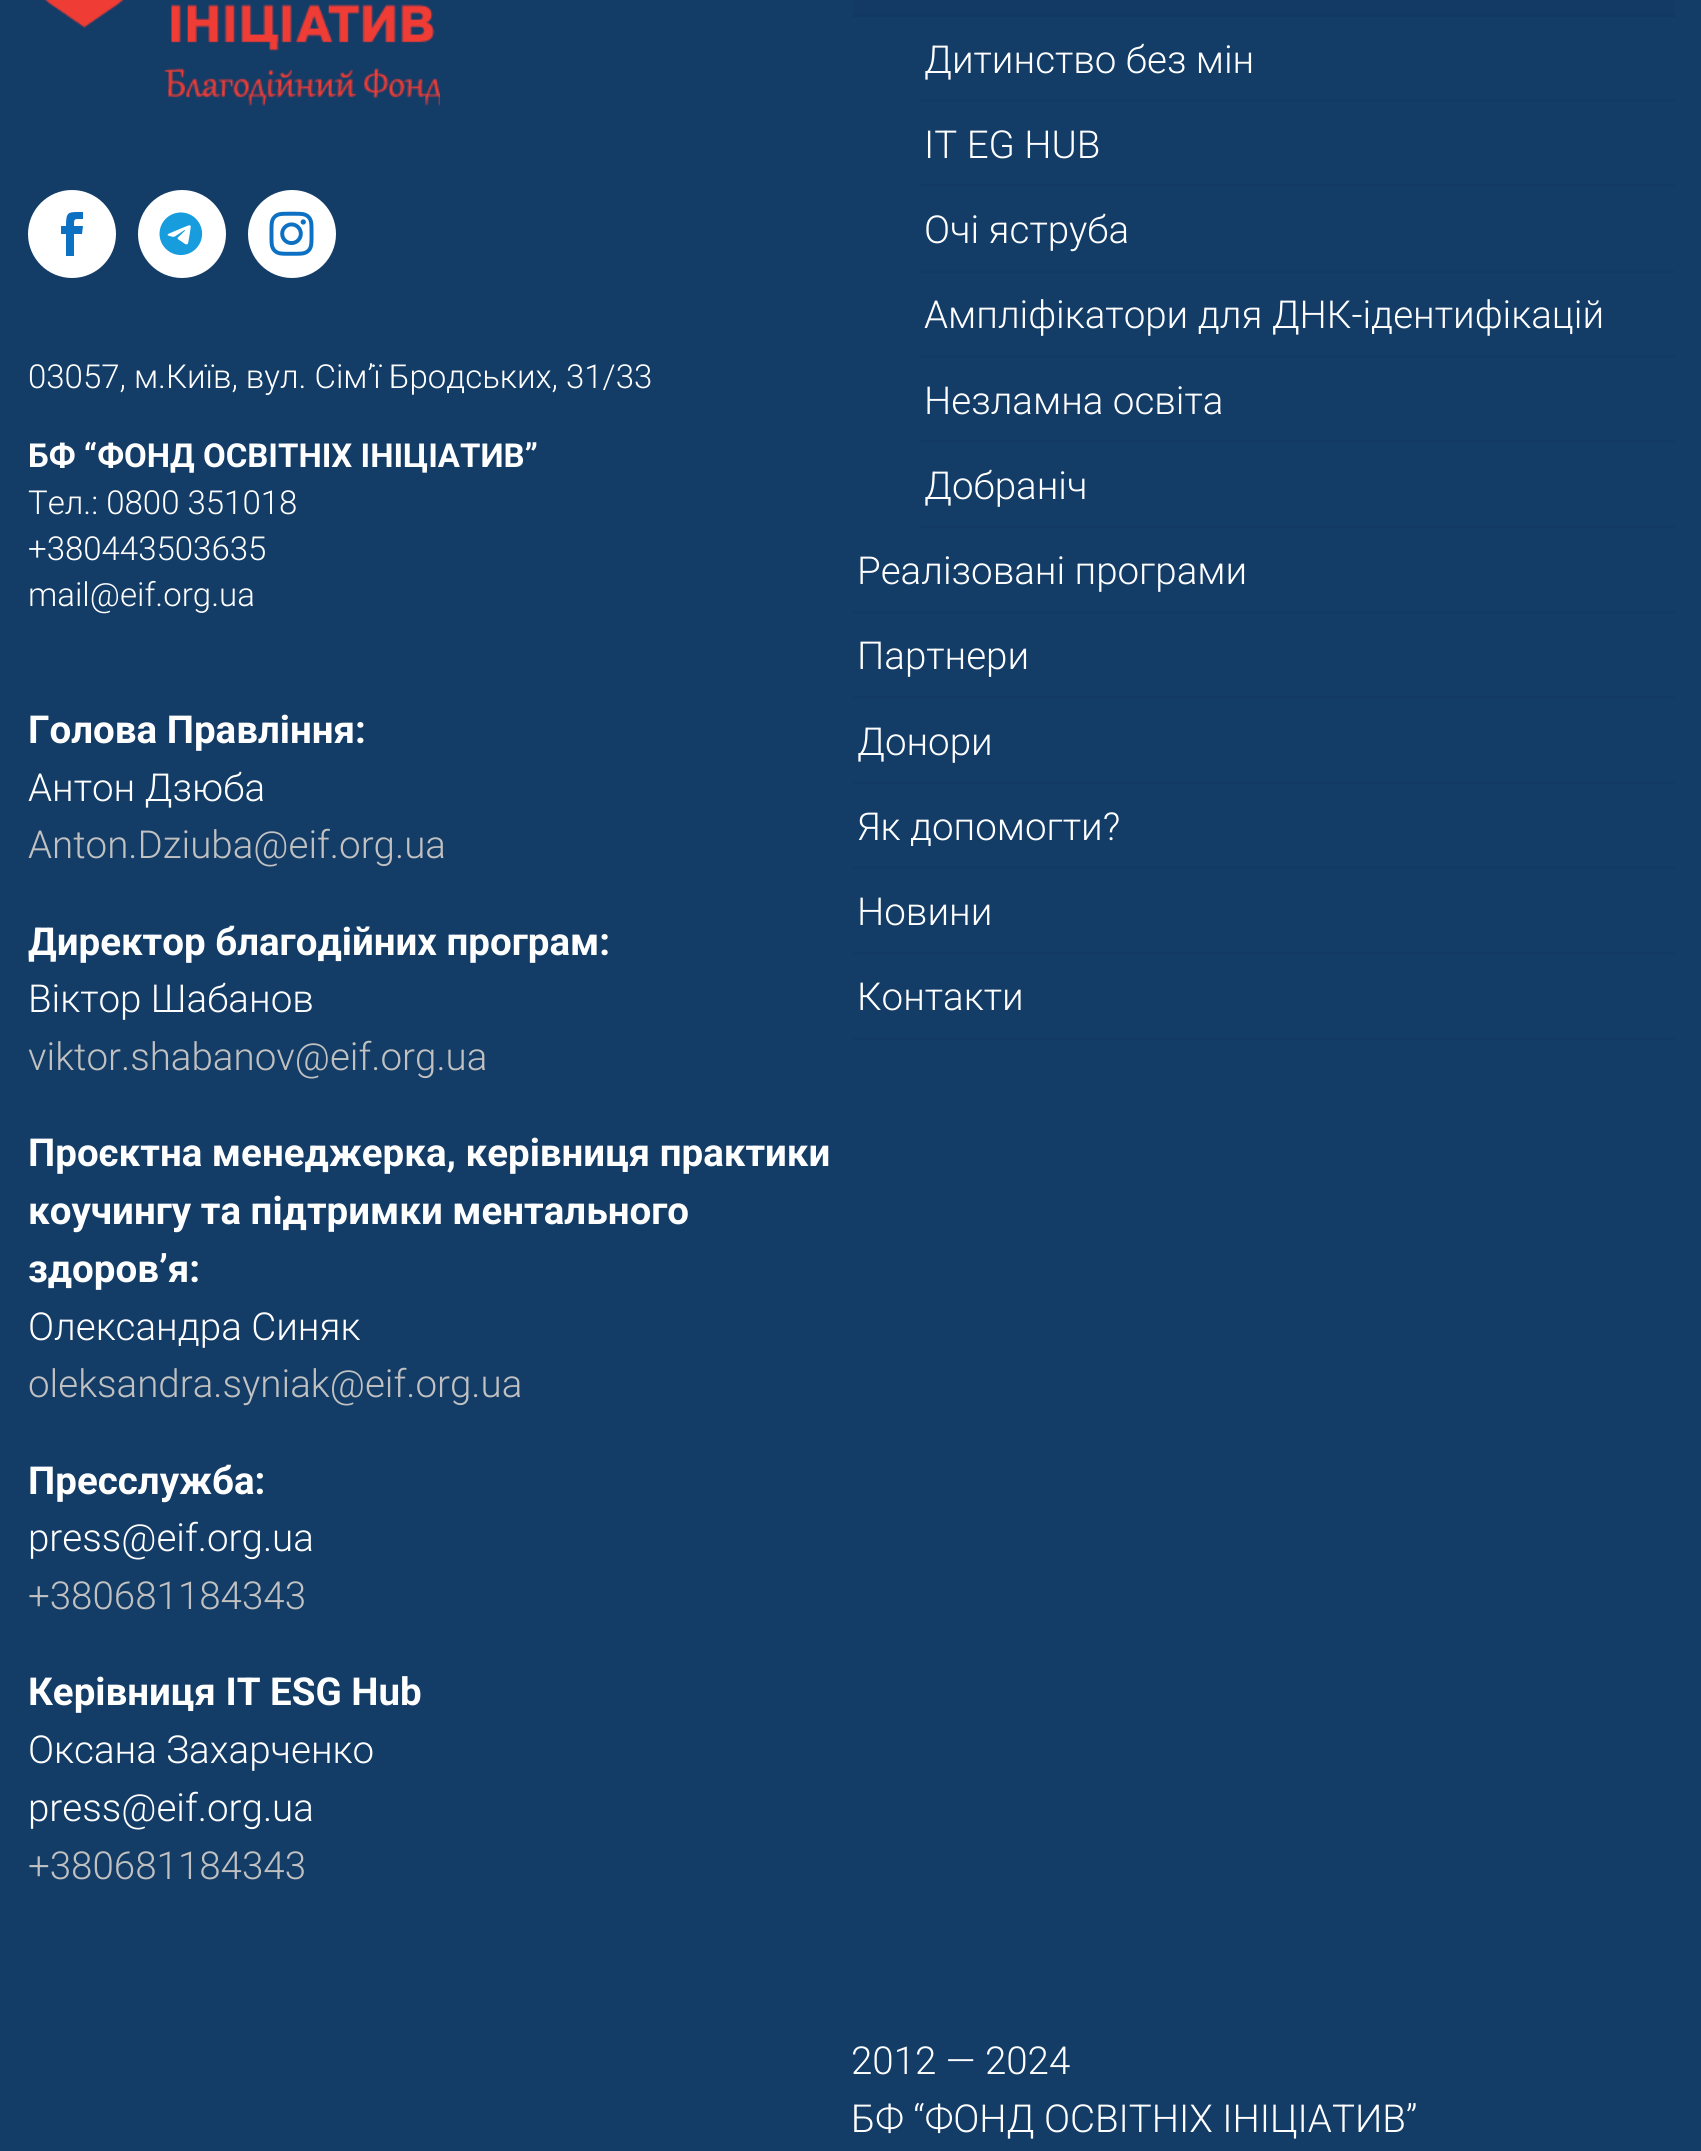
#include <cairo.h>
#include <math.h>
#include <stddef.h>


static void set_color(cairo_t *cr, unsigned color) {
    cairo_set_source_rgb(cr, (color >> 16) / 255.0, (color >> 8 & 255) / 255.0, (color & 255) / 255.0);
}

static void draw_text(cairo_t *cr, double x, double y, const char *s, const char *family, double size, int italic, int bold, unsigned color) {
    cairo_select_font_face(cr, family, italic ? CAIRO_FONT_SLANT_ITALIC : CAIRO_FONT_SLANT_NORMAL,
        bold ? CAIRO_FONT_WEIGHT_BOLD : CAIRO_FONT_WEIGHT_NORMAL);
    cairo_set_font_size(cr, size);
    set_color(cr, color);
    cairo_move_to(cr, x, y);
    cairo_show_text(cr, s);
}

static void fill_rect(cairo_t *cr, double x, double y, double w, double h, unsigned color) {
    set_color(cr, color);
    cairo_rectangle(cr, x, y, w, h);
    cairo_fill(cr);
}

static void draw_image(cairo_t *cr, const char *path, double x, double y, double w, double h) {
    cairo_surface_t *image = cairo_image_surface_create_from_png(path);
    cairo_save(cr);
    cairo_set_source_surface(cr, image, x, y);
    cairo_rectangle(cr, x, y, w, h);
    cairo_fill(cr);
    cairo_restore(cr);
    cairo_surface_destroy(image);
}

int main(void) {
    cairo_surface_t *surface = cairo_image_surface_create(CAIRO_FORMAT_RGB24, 1701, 2151);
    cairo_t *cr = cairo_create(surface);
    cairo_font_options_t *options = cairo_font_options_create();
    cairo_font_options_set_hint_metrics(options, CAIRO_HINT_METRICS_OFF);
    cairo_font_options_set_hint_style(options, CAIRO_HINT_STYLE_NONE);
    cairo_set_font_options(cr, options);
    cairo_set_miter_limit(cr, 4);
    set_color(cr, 0x133C67);
    cairo_paint(cr);
    draw_image(cr, "assets/img1.png", 44, 0, 396, 106);
    set_color(cr, 0xFFFFFF);
    cairo_arc(cr, 72, 234, 44, 0, 2 * M_PI);
    cairo_fill(cr);
    set_color(cr, 0x0C71C3);
    cairo_new_path(cr);
    cairo_move_to(cr, 66, 256);
    cairo_line_to(cr, 74, 256);
    cairo_line_to(cr, 74, 234);
    cairo_line_to(cr, 82, 234);
    cairo_line_to(cr, 83, 226);
    cairo_line_to(cr, 74, 226);
    cairo_curve_to(cr, 74, 218, 74, 219, 83, 219);
    cairo_line_to(cr, 83, 212);
    cairo_curve_to(cr, 68, 212, 66, 211, 66, 226);
    cairo_line_to(cr, 61, 226);
    cairo_line_to(cr, 61, 234);
    cairo_line_to(cr, 66, 234);
    cairo_close_path(cr);
    cairo_fill(cr);
    set_color(cr, 0xFFFFFF);
    cairo_arc(cr, 182, 234, 44, 0, 2 * M_PI);
    cairo_fill(cr);
    draw_image(cr, "assets/img2.png", 159, 212, 44, 44);
    cairo_arc(cr, 292, 234, 44, 0, 2 * M_PI);
    cairo_fill(cr);
    draw_image(cr, "assets/img3.png", 269, 211, 45, 45);
    draw_text(cr, 28, 388, "03057, м.Київ, вул. Сім’ї Бродських, 31/33", "Roboto Light", 33, 0, 0, 0xFFFFFF);
    draw_text(cr, 28, 467, "БФ “ФОНД ОСВІТНІХ ІНІЦІАТИВ”", "Roboto", 33, 0, 1, 0xFFFFFF);
    draw_text(cr, 28, 514, "Тел.: 0800 351018", "Roboto Light", 33, 0, 0, 0xFFFFFF);
    draw_text(cr, 28, 560, "+380443503635", "Roboto Light", 33, 0, 0, 0xFFFFFF);
    draw_text(cr, 28, 606, "mail@eif.org.ua", "Roboto Light", 33, 0, 0, 0xFFFFFF);
    draw_text(cr, 28, 743, "Голова Правління:", "Roboto", 38.5, 0, 1, 0xFFFFFF);
    draw_text(cr, 28, 801, "Антон Дзюба", "Roboto Light", 38.5, 0, 0, 0xFFFFFF);
    draw_text(cr, 28, 858, "Anton.Dziuba@eif.org.ua", "Roboto Light", 38.5, 0, 0, 0xC1C1C1);
    draw_text(cr, 28, 955, "Директор благодійних програм:", "Roboto", 38.5, 0, 1, 0xFFFFFF);
    draw_text(cr, 28, 1012, "Віктор Шабанов", "Roboto Light", 38.5, 0, 0, 0xFFFFFF);
    draw_text(cr, 28, 1070, "viktor.shabanov@eif.org.ua", "Roboto Light", 38.5, 0, 0, 0xC1C1C1);
    draw_text(cr, 28, 1166, "Проєктна менеджерка, керівниця практики", "Roboto", 38.5, 0, 1, 0xFFFFFF);
    draw_text(cr, 28, 1224, "коучингу та підтримки ментального", "Roboto", 38.5, 0, 1, 0xFFFFFF);
    draw_text(cr, 28, 1282, "здоров’я:", "Roboto", 38.5, 0, 1, 0xFFFFFF);
    draw_text(cr, 28, 1340, "Олександра Синяк", "Roboto Light", 38.5, 0, 0, 0xFFFFFF);
    draw_text(cr, 28, 1397, "oleksandra.syniak@eif.org.ua", "Roboto Light", 38.5, 0, 0, 0xC1C1C1);
    draw_text(cr, 28, 1494, "Пресслужба:", "Roboto", 38.5, 0, 1, 0xFFFFFF);
    draw_text(cr, 28, 1551, "press@eif.org.ua", "Roboto Light", 38.5, 0, 0, 0xFFFFFF);
    draw_text(cr, 28, 1609, "+380681184343", "Roboto Light", 38.5, 0, 0, 0xC1C1C1);
    draw_text(cr, 28, 1705, "Керівниця IT ESG Hub", "Roboto", 38.5, 0, 1, 0xFFFFFF);
    draw_text(cr, 28, 1763, "Оксана Захарченко", "Roboto Light", 38.5, 0, 0, 0xFFFFFF);
    draw_text(cr, 28, 1821, "press@eif.org.ua", "Roboto Light", 38.5, 0, 0, 0xFFFFFF);
    draw_text(cr, 28, 1879, "+380681184343", "Roboto Light", 38.5, 0, 0, 0xC1C1C1);
    fill_rect(cr, 853, 0, 822, 14, 0x123A64);
    fill_rect(cr, 853, 14, 822, 3, 0x113861);
    fill_rect(cr, 919, 99, 756, 3, 0x123A64);
    draw_text(cr, 924, 73, "Дитинство без мін", "Roboto Light", 38.5, 0, 0, 0xFFFFFF);
    fill_rect(cr, 919, 184, 756, 3, 0x123A64);
    draw_text(cr, 924, 158, "IT EG HUB", "Roboto Light", 38.5, 0, 0, 0xFFFFFF);
    fill_rect(cr, 919, 270, 756, 3, 0x123A64);
    draw_text(cr, 924, 243, "Очі яструба", "Roboto Light", 38.5, 0, 0, 0xFFFFFF);
    fill_rect(cr, 919, 355, 756, 3, 0x123A64);
    draw_text(cr, 924, 328, "Ампліфікатори для ДНК-ідентифікацій", "Roboto Light", 38.5, 0, 0, 0xFFFFFF);
    fill_rect(cr, 919, 440, 756, 3, 0x123A64);
    draw_text(cr, 924, 414, "Незламна освіта", "Roboto Light", 38.5, 0, 0, 0xFFFFFF);
    fill_rect(cr, 919, 525, 756, 3, 0x123A64);
    draw_text(cr, 924, 499, "Добраніч", "Roboto Light", 38.5, 0, 0, 0xFFFFFF);
    fill_rect(cr, 853, 611, 822, 3, 0x123A64);
    draw_text(cr, 857, 584, "Реалізовані програми", "Roboto Light", 38.5, 0, 0, 0xFFFFFF);
    fill_rect(cr, 853, 696, 822, 3, 0x123A64);
    draw_text(cr, 857, 669, "Партнери", "Roboto Light", 38.5, 0, 0, 0xFFFFFF);
    fill_rect(cr, 853, 781, 822, 3, 0x123A64);
    draw_text(cr, 857, 755, "Донори", "Roboto Light", 38.5, 0, 0, 0xFFFFFF);
    fill_rect(cr, 853, 866, 822, 3, 0x123A64);
    draw_text(cr, 857, 840, "Як допомогти?", "Roboto Light", 38.5, 0, 0, 0xFFFFFF);
    fill_rect(cr, 853, 952, 822, 3, 0x123A64);
    draw_text(cr, 857, 925, "Новини", "Roboto Light", 38.5, 0, 0, 0xFFFFFF);
    fill_rect(cr, 853, 1037, 822, 3, 0x123A64);
    draw_text(cr, 857, 1010, "Контакти", "Roboto Light", 38.5, 0, 0, 0xFFFFFF);
    draw_text(cr, 851, 2074, "2012 — 2024", "Roboto Light", 38.5, 0, 0, 0xFFFFFF);
    draw_text(cr, 851, 2132, "БФ “ФОНД ОСВІТНІХ ІНІЦІАТИВ”", "Roboto Light", 38.5, 0, 0, 0xFFFFFF);
    cairo_surface_write_to_png(surface, "output.png");
    cairo_font_options_destroy(options);
    cairo_destroy(cr);
    cairo_surface_destroy(surface);
    return 0;
}
